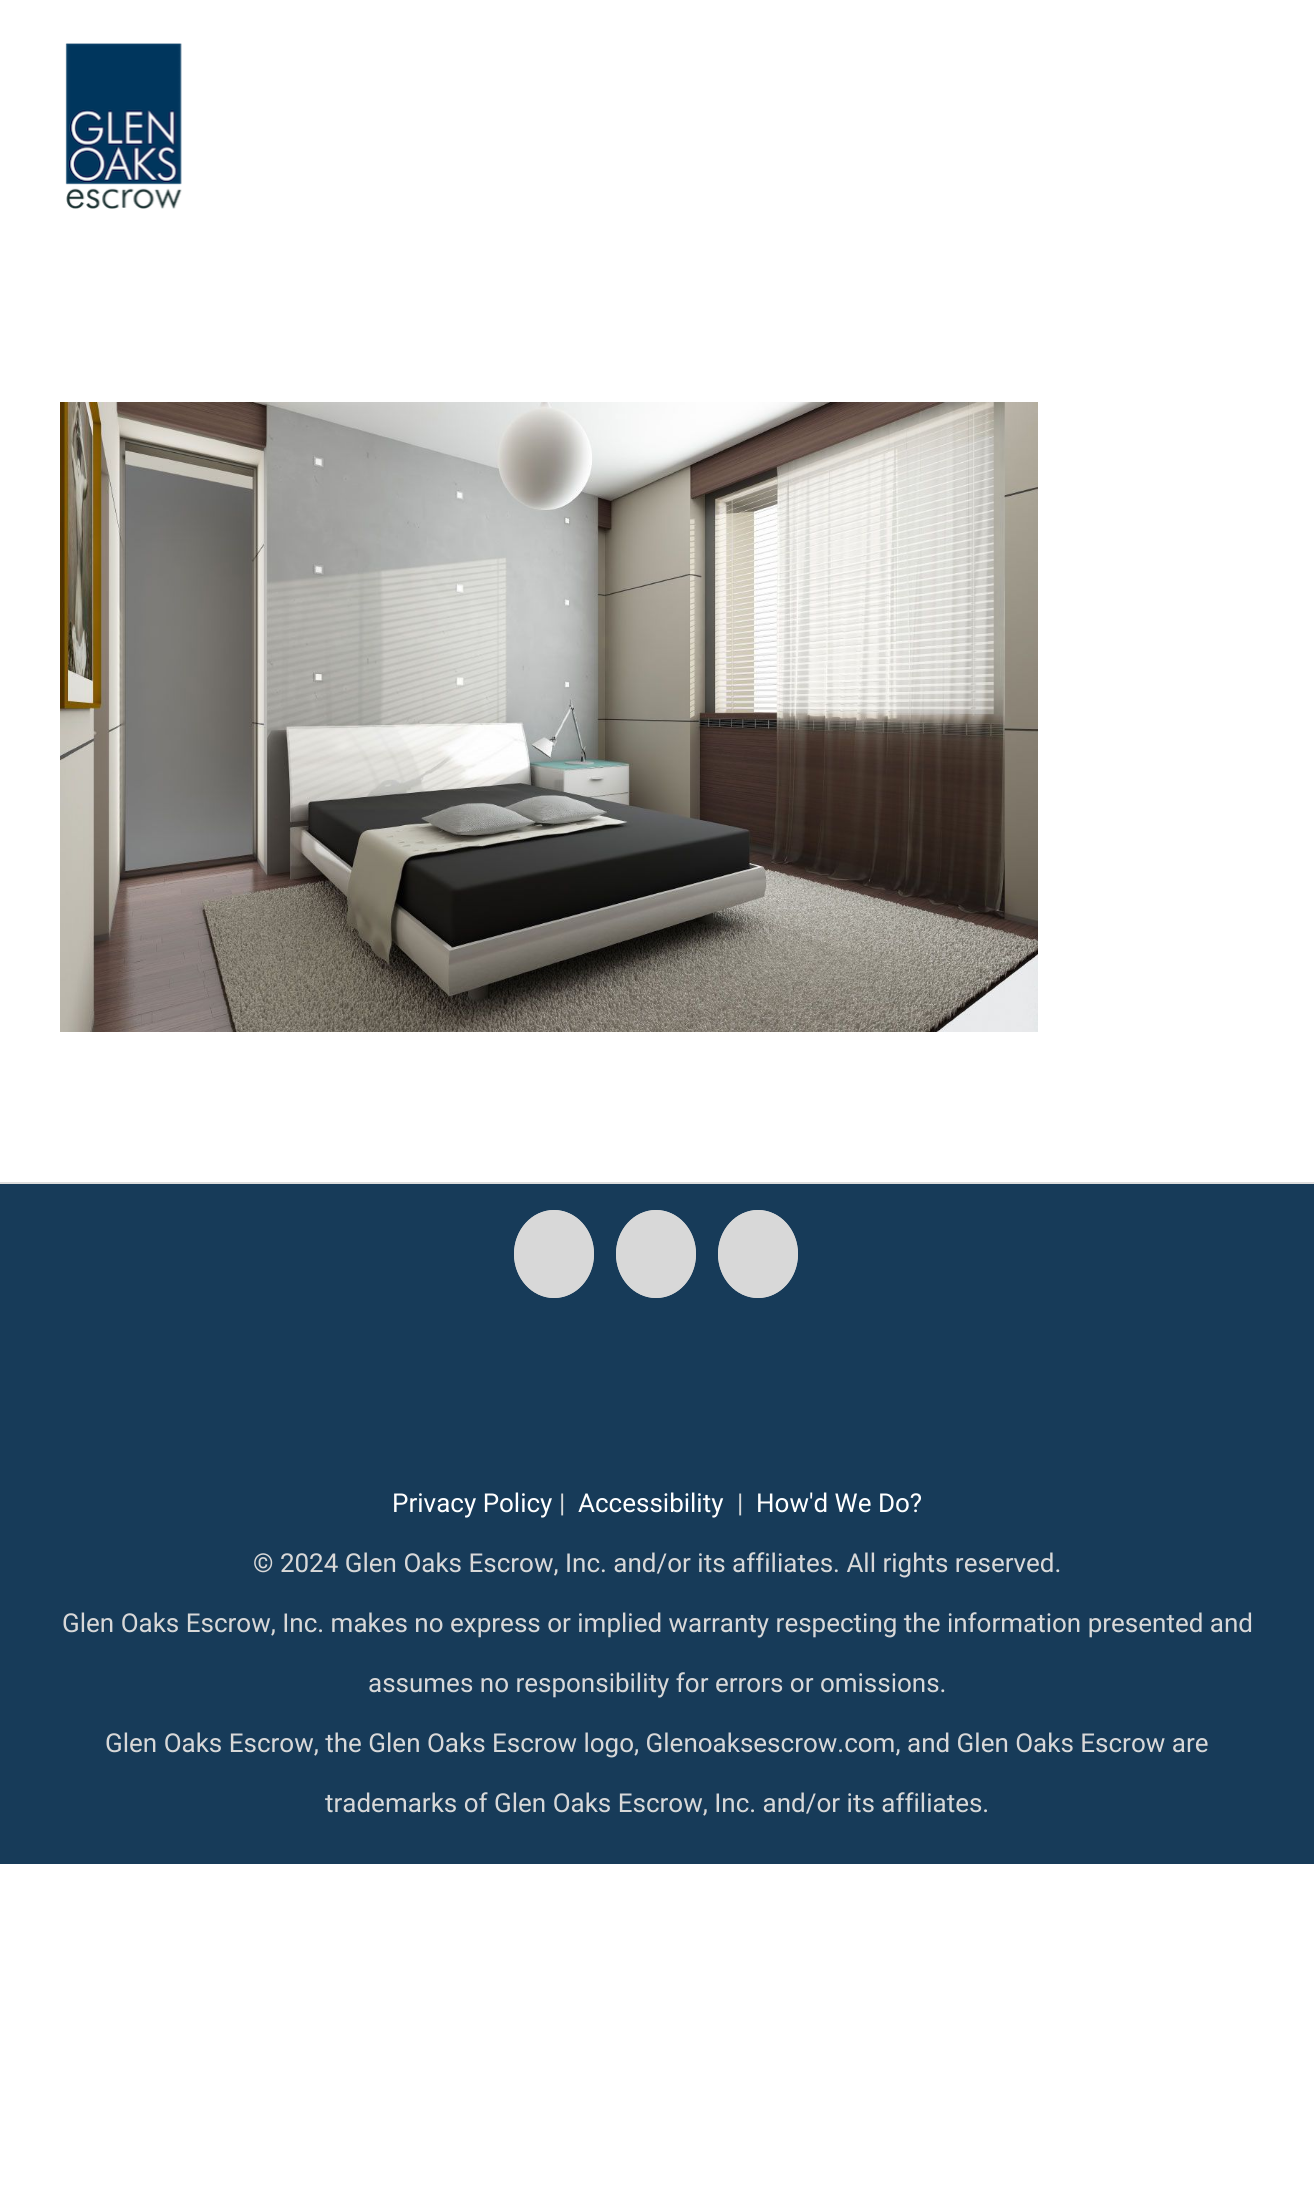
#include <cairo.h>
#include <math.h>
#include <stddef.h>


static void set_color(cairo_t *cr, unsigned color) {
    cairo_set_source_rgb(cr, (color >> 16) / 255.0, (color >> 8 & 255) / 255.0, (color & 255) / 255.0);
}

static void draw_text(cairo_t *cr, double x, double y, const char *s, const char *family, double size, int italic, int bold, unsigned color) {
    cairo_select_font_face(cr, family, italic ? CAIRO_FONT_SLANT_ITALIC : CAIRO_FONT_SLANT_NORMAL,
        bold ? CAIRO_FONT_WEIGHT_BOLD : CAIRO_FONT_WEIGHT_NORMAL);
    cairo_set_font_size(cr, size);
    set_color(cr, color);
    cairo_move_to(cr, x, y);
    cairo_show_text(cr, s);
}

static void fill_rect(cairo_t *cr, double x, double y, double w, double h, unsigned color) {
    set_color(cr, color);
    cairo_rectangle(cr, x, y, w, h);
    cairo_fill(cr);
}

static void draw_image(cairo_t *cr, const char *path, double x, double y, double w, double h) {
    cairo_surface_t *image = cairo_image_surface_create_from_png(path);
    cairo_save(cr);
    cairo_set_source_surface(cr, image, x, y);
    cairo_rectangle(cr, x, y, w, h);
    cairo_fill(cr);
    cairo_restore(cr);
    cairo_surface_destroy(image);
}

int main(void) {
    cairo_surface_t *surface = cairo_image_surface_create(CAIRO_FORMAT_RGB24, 1314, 2190);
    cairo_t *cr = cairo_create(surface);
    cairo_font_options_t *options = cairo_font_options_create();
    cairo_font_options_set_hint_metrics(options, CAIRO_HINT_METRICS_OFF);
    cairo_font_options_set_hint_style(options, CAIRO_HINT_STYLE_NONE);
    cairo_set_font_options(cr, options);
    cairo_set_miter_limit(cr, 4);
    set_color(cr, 0xFFFFFF);
    cairo_paint(cr);
    draw_image(cr, "assets/img1.png", 65, 43, 117, 166);
    draw_image(cr, "assets/img2.png", 60, 402, 978, 630);
    fill_rect(cr, 0, 1184, 1314, 680, 0x173B59);
    fill_rect(cr, 0, 1182, 1314, 2, 0xDDDDDD);
    set_color(cr, 0xD8D8D8);
    cairo_new_path(cr);
    cairo_move_to(cr, 554, 1210);
    cairo_curve_to(cr, 576, 1210, 594, 1229.5, 594, 1254);
    cairo_curve_to(cr, 594, 1278.5, 576, 1298, 554, 1298);
    cairo_curve_to(cr, 532, 1298, 514, 1278.5, 514, 1254);
    cairo_curve_to(cr, 514, 1229.5, 532, 1210, 554, 1210);
    cairo_close_path(cr);
    cairo_fill(cr);
    cairo_new_path(cr);
    cairo_move_to(cr, 554, 1211);
    cairo_curve_to(cr, 575.5, 1211, 593, 1230.5, 593, 1254);
    cairo_curve_to(cr, 593, 1277.5, 575.5, 1297, 554, 1297);
    cairo_curve_to(cr, 532.5, 1297, 515, 1277.5, 515, 1254);
    cairo_curve_to(cr, 515, 1230.5, 532.5, 1211, 554, 1211);
    cairo_close_path(cr);
    cairo_stroke(cr);
    cairo_new_path(cr);
    cairo_move_to(cr, 656, 1210);
    cairo_curve_to(cr, 678, 1210, 696, 1229.5, 696, 1254);
    cairo_curve_to(cr, 696, 1278.5, 678, 1298, 656, 1298);
    cairo_curve_to(cr, 634, 1298, 616, 1278.5, 616, 1254);
    cairo_curve_to(cr, 616, 1229.5, 634, 1210, 656, 1210);
    cairo_close_path(cr);
    cairo_fill(cr);
    cairo_new_path(cr);
    cairo_move_to(cr, 656, 1211);
    cairo_curve_to(cr, 677.5, 1211, 695, 1230.5, 695, 1254);
    cairo_curve_to(cr, 695, 1277.5, 677.5, 1297, 656, 1297);
    cairo_curve_to(cr, 634.5, 1297, 617, 1277.5, 617, 1254);
    cairo_curve_to(cr, 617, 1230.5, 634.5, 1211, 656, 1211);
    cairo_close_path(cr);
    cairo_stroke(cr);
    cairo_new_path(cr);
    cairo_move_to(cr, 758, 1210);
    cairo_curve_to(cr, 780, 1210, 798, 1229.5, 798, 1254);
    cairo_curve_to(cr, 798, 1278.5, 780, 1298, 758, 1298);
    cairo_curve_to(cr, 736, 1298, 718, 1278.5, 718, 1254);
    cairo_curve_to(cr, 718, 1229.5, 736, 1210, 758, 1210);
    cairo_close_path(cr);
    cairo_fill(cr);
    cairo_new_path(cr);
    cairo_move_to(cr, 758, 1211);
    cairo_curve_to(cr, 779.5, 1211, 797, 1230.5, 797, 1254);
    cairo_curve_to(cr, 797, 1277.5, 779.5, 1297, 758, 1297);
    cairo_curve_to(cr, 736.5, 1297, 719, 1277.5, 719, 1254);
    cairo_curve_to(cr, 719, 1230.5, 736.5, 1211, 758, 1211);
    cairo_close_path(cr);
    cairo_stroke(cr);
    draw_text(cr, 392, 1512, "Privacy Policy", "Roboto", 26, 0, 0, 0xFFFFFF);
    draw_text(cr, 559, 1512, "|", "Roboto", 26, 0, 0, 0xD8D8D8);
    draw_text(cr, 578, 1512, "Accessibility", "Roboto", 26, 0, 0, 0xFFFFFF);
    draw_text(cr, 737, 1512, "|", "Roboto", 26, 0, 0, 0xD8D8D8);
    draw_text(cr, 756, 1512, "How'd We Do?", "Roboto", 26, 0, 0, 0xFFFFFF);
    draw_text(cr, 253, 1572, "© 2024 Glen Oaks Escrow, Inc. and/or its affiliates. All rights reserved.", "Roboto", 26, 0, 0, 0xD8D8D8);
    draw_text(cr, 62, 1632, "Glen Oaks Escrow, Inc. makes no express or implied warranty respecting the information presented and", "Roboto", 26, 0, 0, 0xD8D8D8);
    draw_text(cr, 368, 1692, "assumes no responsibility for errors or omissions.", "Roboto", 26, 0, 0, 0xD8D8D8);
    draw_text(cr, 105, 1752, "Glen Oaks Escrow, the Glen Oaks Escrow logo, Glenoaksescrow.com, and Glen Oaks Escrow are", "Roboto", 26, 0, 0, 0xD8D8D8);
    draw_text(cr, 325, 1812, "trademarks of Glen Oaks Escrow, Inc. and/or its affiliates.", "Roboto", 26, 0, 0, 0xD8D8D8);
    cairo_surface_write_to_png(surface, "output.png");
    cairo_font_options_destroy(options);
    cairo_destroy(cr);
    cairo_surface_destroy(surface);
    return 0;
}
